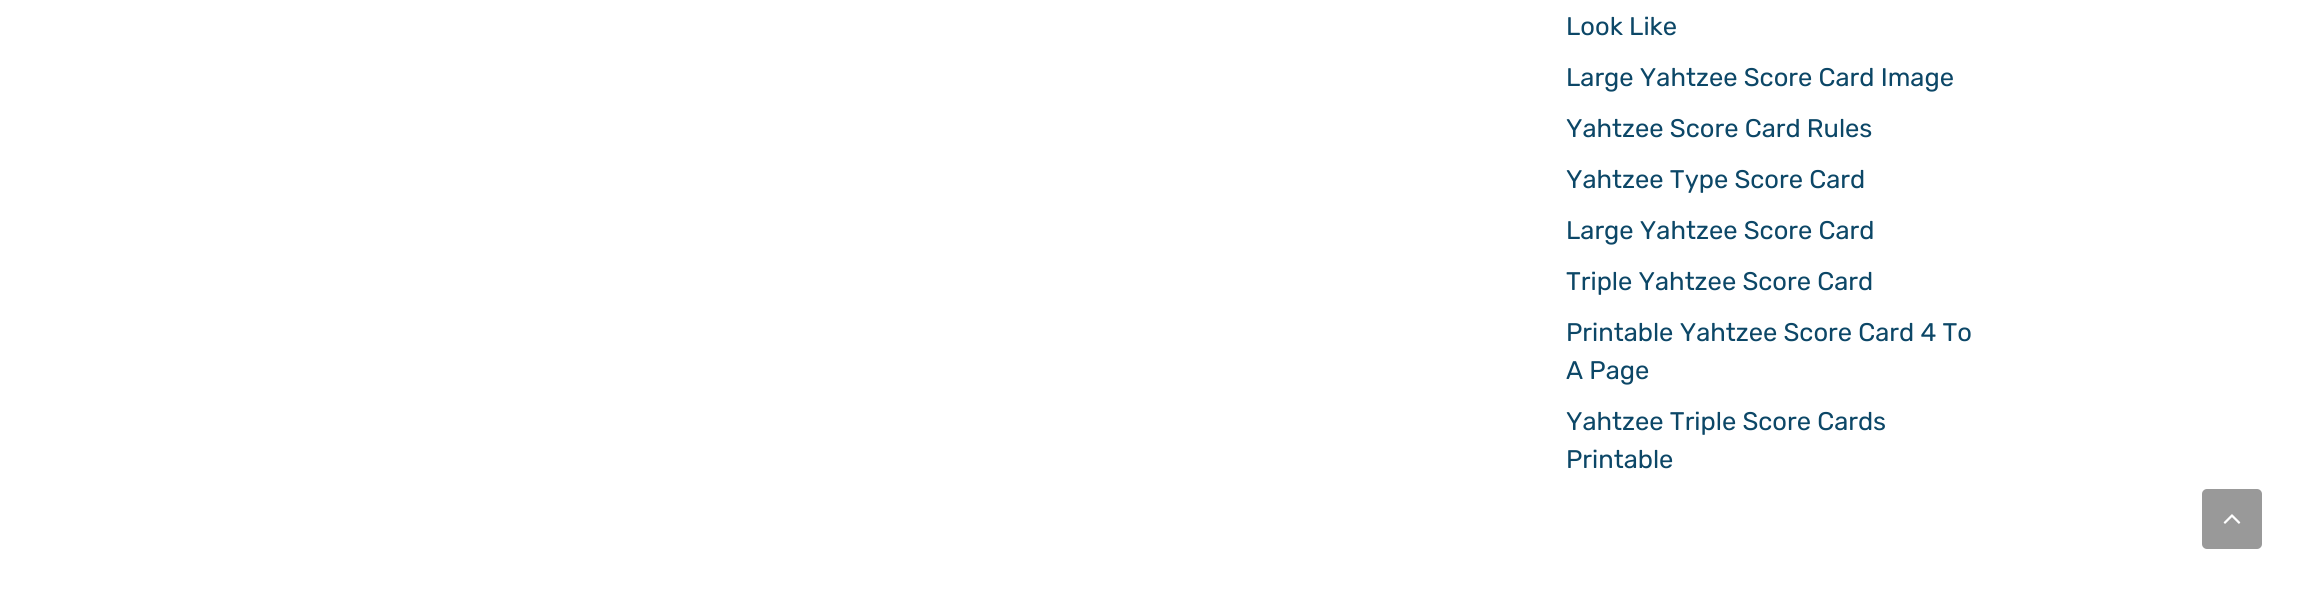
#include <cairo.h>
#include <math.h>
#include <stddef.h>


static void set_color(cairo_t *cr, unsigned color) {
    cairo_set_source_rgb(cr, (color >> 16) / 255.0, (color >> 8 & 255) / 255.0, (color & 255) / 255.0);
}

static void draw_text(cairo_t *cr, double x, double y, const char *s, const char *family, double size, int italic, int bold, unsigned color) {
    cairo_select_font_face(cr, family, italic ? CAIRO_FONT_SLANT_ITALIC : CAIRO_FONT_SLANT_NORMAL,
        bold ? CAIRO_FONT_WEIGHT_BOLD : CAIRO_FONT_WEIGHT_NORMAL);
    cairo_set_font_size(cr, size);
    set_color(cr, color);
    cairo_move_to(cr, x, y);
    cairo_show_text(cr, s);
}

static void rounded_rect(cairo_t *cr, double x, double y, double w, double h, double r) {
    cairo_new_sub_path(cr);
    cairo_arc(cr, x + w - r, y + h - r, r, 0, M_PI / 2);
    cairo_arc(cr, x + r, y + h - r, r, M_PI / 2, M_PI);
    cairo_arc(cr, x + r, y + r, r, M_PI, 1.5 * M_PI);
    cairo_arc(cr, x + w - r, y + r, r, 1.5 * M_PI, 2 * M_PI);
    cairo_close_path(cr);
}

static void draw_image(cairo_t *cr, const char *path, double x, double y, double w, double h) {
    cairo_surface_t *image = cairo_image_surface_create_from_png(path);
    cairo_save(cr);
    cairo_set_source_surface(cr, image, x, y);
    cairo_rectangle(cr, x, y, w, h);
    cairo_fill(cr);
    cairo_restore(cr);
    cairo_surface_destroy(image);
}

int main(void) {
    cairo_surface_t *surface = cairo_image_surface_create(CAIRO_FORMAT_RGB24, 2306, 594);
    cairo_t *cr = cairo_create(surface);
    cairo_font_options_t *options = cairo_font_options_create();
    cairo_font_options_set_hint_metrics(options, CAIRO_HINT_METRICS_OFF);
    cairo_font_options_set_hint_style(options, CAIRO_HINT_STYLE_NONE);
    cairo_set_font_options(cr, options);
    cairo_set_miter_limit(cr, 4);
    set_color(cr, 0xFFFFFF);
    cairo_paint(cr);
    draw_text(cr, 1566, 35, "Look Like", "Rubik", 25.5, 0, 0, 0x0C4767);
    draw_text(cr, 1566, 86, "Large Yahtzee Score Card Image", "Rubik", 25.5, 0, 0, 0x0C4767);
    draw_text(cr, 1566, 137, "Yahtzee Score Card Rules", "Rubik", 25.5, 0, 0, 0x0C4767);
    draw_text(cr, 1566, 188, "Yahtzee Type Score Card", "Rubik", 25.5, 0, 0, 0x0C4767);
    draw_text(cr, 1566, 239, "Large Yahtzee Score Card", "Rubik", 25.5, 0, 0, 0x0C4767);
    draw_text(cr, 1566, 290, "Triple Yahtzee Score Card", "Rubik", 25.5, 0, 0, 0x0C4767);
    draw_text(cr, 1566, 341, "Printable Yahtzee Score Card 4 To", "Rubik", 25.5, 0, 0, 0x0C4767);
    draw_text(cr, 1566, 379, "A Page", "Rubik", 25.5, 0, 0, 0x0C4767);
    draw_text(cr, 1566, 430, "Yahtzee Triple Score Cards", "Rubik", 25.5, 0, 0, 0x0C4767);
    draw_text(cr, 1566, 468, "Printable", "Rubik", 25.5, 0, 0, 0x0C4767);
    set_color(cr, 0x999999);
    rounded_rect(cr, 2202, 489, 60, 60, 5);
    cairo_fill(cr);
    draw_image(cr, "assets/img1.png", 2223, 514, 18, 10);
    cairo_surface_write_to_png(surface, "output.png");
    cairo_font_options_destroy(options);
    cairo_destroy(cr);
    cairo_surface_destroy(surface);
    return 0;
}
